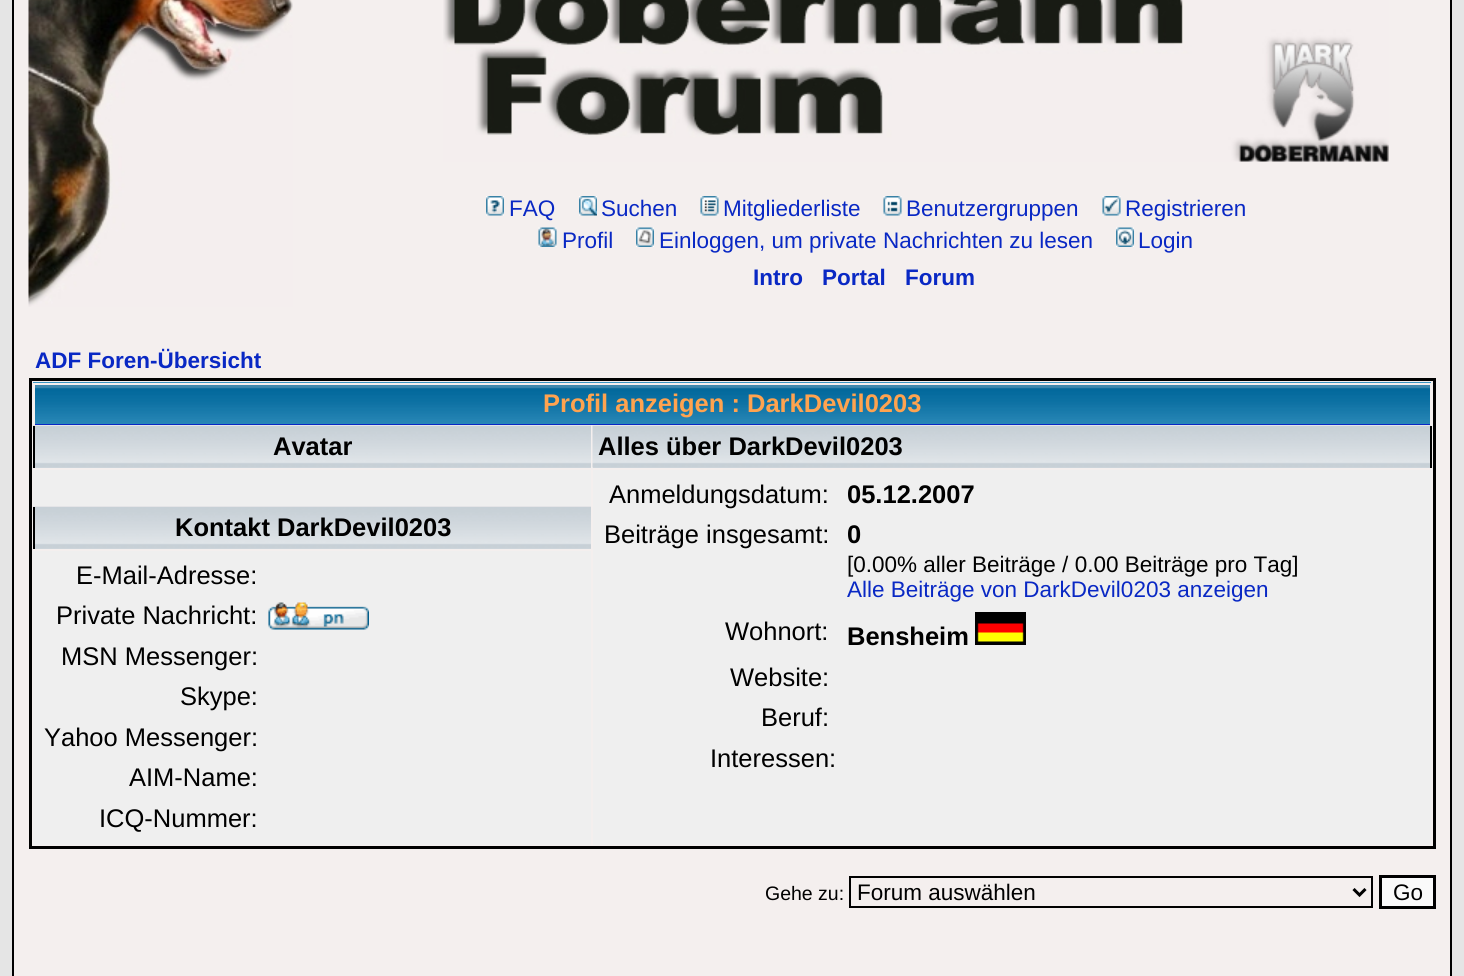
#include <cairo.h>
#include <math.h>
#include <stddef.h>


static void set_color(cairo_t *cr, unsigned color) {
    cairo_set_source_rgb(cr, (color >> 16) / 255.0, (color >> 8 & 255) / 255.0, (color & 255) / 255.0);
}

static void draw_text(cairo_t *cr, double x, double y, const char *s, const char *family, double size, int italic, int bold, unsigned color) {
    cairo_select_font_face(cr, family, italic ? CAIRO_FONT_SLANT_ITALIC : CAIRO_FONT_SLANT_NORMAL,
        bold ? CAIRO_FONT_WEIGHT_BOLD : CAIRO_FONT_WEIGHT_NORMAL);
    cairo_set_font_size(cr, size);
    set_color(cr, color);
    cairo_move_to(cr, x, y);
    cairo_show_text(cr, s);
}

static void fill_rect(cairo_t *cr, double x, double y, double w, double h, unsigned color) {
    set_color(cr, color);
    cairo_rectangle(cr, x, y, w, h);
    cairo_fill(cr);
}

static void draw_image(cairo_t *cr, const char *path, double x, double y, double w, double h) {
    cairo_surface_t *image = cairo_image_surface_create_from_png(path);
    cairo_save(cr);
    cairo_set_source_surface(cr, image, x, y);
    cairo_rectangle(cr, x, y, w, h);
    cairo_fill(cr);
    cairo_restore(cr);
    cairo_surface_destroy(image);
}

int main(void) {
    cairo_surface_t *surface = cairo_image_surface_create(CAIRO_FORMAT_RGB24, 1464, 976);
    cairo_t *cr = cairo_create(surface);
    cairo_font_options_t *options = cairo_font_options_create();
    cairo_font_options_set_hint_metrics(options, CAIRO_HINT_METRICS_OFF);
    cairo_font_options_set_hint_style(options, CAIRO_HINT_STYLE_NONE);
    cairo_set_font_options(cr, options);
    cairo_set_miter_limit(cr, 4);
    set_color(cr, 0xE5E5E5);
    cairo_paint(cr);
    set_color(cr, 0xF4EFEE);
    cairo_rectangle(cr, 13, -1, 1438, 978);
    cairo_fill_preserve(cr);
    set_color(cr, 0x000000);
    cairo_stroke(cr);
    draw_image(cr, "assets/img1.png", 28, 0, 265, 307);
    draw_image(cr, "assets/img2.png", 443, 0, 946, 162);
    draw_image(cr, "assets/img3.png", 486, 196, 18, 20);
    draw_text(cr, 509, 216, "FAQ", "Liberation Sans", 22.5, 0, 0, 0x0928C4);
    draw_image(cr, "assets/img4.png", 579, 196, 18, 20);
    draw_text(cr, 601, 216, "Suchen", "Liberation Sans", 22.5, 0, 0, 0x0928C4);
    draw_image(cr, "assets/img5.png", 700, 196, 19, 20);
    draw_text(cr, 723, 216, "Mitgliederliste", "Liberation Sans", 22.5, 0, 0, 0x0928C4);
    draw_image(cr, "assets/img6.png", 883, 196, 19, 20);
    draw_text(cr, 906, 216, "Benutzergruppen", "Liberation Sans", 22.5, 0, 0, 0x0928C4);
    draw_image(cr, "assets/img7.png", 1102, 196, 19, 20);
    draw_text(cr, 1125, 216, "Registrieren", "Liberation Sans", 22.5, 0, 0, 0x0928C4);
    draw_image(cr, "assets/img8.png", 538, 227, 19, 20);
    draw_text(cr, 562, 248, "Profil", "Liberation Sans", 22.5, 0, 0, 0x0928C4);
    draw_image(cr, "assets/img9.png", 636, 227, 18, 20);
    draw_text(cr, 659, 248, "Einloggen, um private Nachrichten zu lesen", "Liberation Sans", 22.5, 0, 0, 0x0928C4);
    draw_image(cr, "assets/img10.png", 1116, 227, 18, 20);
    draw_text(cr, 1138, 248, "Login", "Liberation Sans", 22.5, 0, 0, 0x0928C4);
    draw_text(cr, 753, 285, "Intro", "Liberation Sans", 22.5, 0, 1, 0x0928C4);
    draw_text(cr, 822, 285, "Portal", "Liberation Sans", 22.5, 0, 1, 0x0928C4);
    draw_text(cr, 905, 285, "Forum", "Liberation Sans", 22.5, 0, 1, 0x0928C4);
    draw_text(cr, 35, 368, "ADF Foren-Übersicht", "Liberation Sans", 22.5, 0, 1, 0x0928C4);
    cairo_rectangle(cr, 30.5, 379.5, 1404, 468);
    set_color(cr, 0x000000);
    cairo_set_line_width(cr, 3);
    cairo_stroke(cr);
    fill_rect(cr, 35, 424, 1395, 1, 0x0928C4);
    draw_image(cr, "assets/img11.png", 33, 382, 1398, 42);
    fill_rect(cr, 33, 383, 1398, 2, 0xF4EFEE);
    fill_rect(cr, 1430, 383, 1, 42, 0xF4EFEE);
    fill_rect(cr, 33, 383, 2, 42, 0xF4EFEE);
    draw_text(cr, 543, 412, "Profil anzeigen : DarkDevil0203", "Liberation Sans", 25.5, 0, 1, 0xFFA34F);
    fill_rect(cr, 35, 467, 556, 1, 0xD1D7DC);
    draw_image(cr, "assets/img12.png", 33, 425, 558, 43);
    fill_rect(cr, 33, 426, 2, 42, 0x000000);
    draw_text(cr, 273, 455, "Avatar", "Liberation Sans", 25.5, 0, 1, 0x000000);
    fill_rect(cr, 593, 467, 837, 1, 0xD1D7DC);
    draw_image(cr, "assets/img13.png", 592, 425, 839, 43);
    fill_rect(cr, 1430, 426, 2, 42, 0x000000);
    draw_text(cr, 598, 455, "Alles über DarkDevil0203", "Liberation Sans", 25.5, 0, 1, 0x000000);
    fill_rect(cr, 35, 548, 556, 1, 0xD1D7DC);
    draw_image(cr, "assets/img12.png", 33, 506, 558, 43);
    fill_rect(cr, 33, 507, 2, 42, 0x000000);
    draw_text(cr, 175, 536, "Kontakt DarkDevil0203", "Liberation Sans", 25.5, 0, 1, 0x000000);
    fill_rect(cr, 33, 470, 558, 36, 0xEFEFEF);
    fill_rect(cr, 593, 470, 838, 375, 0xEFEFEF);
    draw_text(cr, 609, 503, "Anmeldungsdatum:", "Liberation Sans", 25.5, 0, 0, 0x000000);
    draw_text(cr, 847, 503, "05.12.2007", "Liberation Sans", 25.5, 0, 1, 0x000000);
    draw_text(cr, 604, 543, "Beiträge insgesamt:", "Liberation Sans", 25.5, 0, 0, 0x000000);
    draw_text(cr, 847, 543, "0", "Liberation Sans", 25.5, 0, 1, 0x000000);
    draw_text(cr, 847, 572, "[0.00% aller Beiträge / 0.00 Beiträge pro Tag]", "Liberation Sans", 22.5, 0, 0, 0x000000);
    draw_text(cr, 847, 597, "Alle Beiträge von DarkDevil0203 anzeigen", "Liberation Sans", 22.5, 0, 0, 0x0928C4);
    draw_text(cr, 725, 640, "Wohnort:", "Liberation Sans", 25.5, 0, 0, 0x000000);
    draw_text(cr, 847, 645, "Bensheim", "Liberation Sans", 25.5, 0, 1, 0x000000);
    cairo_rectangle(cr, 976, 613, 49, 31);
    cairo_set_line_width(cr, 2);
    cairo_stroke(cr);
    draw_image(cr, "assets/img14.png", 977, 614, 47, 29);
    draw_text(cr, 730, 686, "Website:", "Liberation Sans", 25.5, 0, 0, 0x000000);
    draw_text(cr, 761, 726, "Beruf:", "Liberation Sans", 25.5, 0, 0, 0x000000);
    draw_text(cr, 710, 767, "Interessen:", "Liberation Sans", 25.5, 0, 0, 0x000000);
    fill_rect(cr, 33, 551, 558, 294, 0xEFEFEF);
    draw_text(cr, 76, 584, "E-Mail-Adresse:", "Liberation Sans", 25.5, 0, 0, 0x000000);
    draw_text(cr, 56, 624, "Private Nachricht:", "Liberation Sans", 25.5, 0, 0, 0x000000);
    draw_image(cr, "assets/img15.png", 268, 602, 101, 28);
    draw_text(cr, 61, 665, "MSN Messenger:", "Liberation Sans", 25.5, 0, 0, 0x000000);
    draw_text(cr, 180, 705, "Skype:", "Liberation Sans", 25.5, 0, 0, 0x000000);
    draw_text(cr, 44, 746, "Yahoo Messenger:", "Liberation Sans", 25.5, 0, 0, 0x000000);
    draw_text(cr, 129, 786, "AIM-Name:", "Liberation Sans", 25.5, 0, 0, 0x000000);
    draw_text(cr, 99, 827, "ICQ-Nummer:", "Liberation Sans", 25.5, 0, 0, 0x000000);
    draw_text(cr, 765, 900, "Gehe zu:", "Liberation Sans", 19.5, 0, 0, 0x000000);
    cairo_rectangle(cr, 850, 877, 522, 30);
    cairo_stroke(cr);
    cairo_new_path(cr);
    cairo_move_to(cr, 1353.5, 889);
    cairo_line_to(cr, 1359.5, 895);
    cairo_line_to(cr, 1365.5, 889);
    cairo_set_line_width(cr, 3);
    cairo_stroke(cr);
    draw_text(cr, 857, 900, "Forum auswählen", "Liberation Sans", 22.5, 0, 0, 0x000000);
    set_color(cr, 0xFAFAFA);
    cairo_rectangle(cr, 1380.5, 876.5, 54, 31);
    cairo_fill_preserve(cr);
    set_color(cr, 0x000000);
    cairo_stroke(cr);
    draw_text(cr, 1393, 900, "Go", "Liberation Sans", 22.5, 0, 0, 0x000000);
    cairo_surface_write_to_png(surface, "output.png");
    cairo_font_options_destroy(options);
    cairo_destroy(cr);
    cairo_surface_destroy(surface);
    return 0;
}
